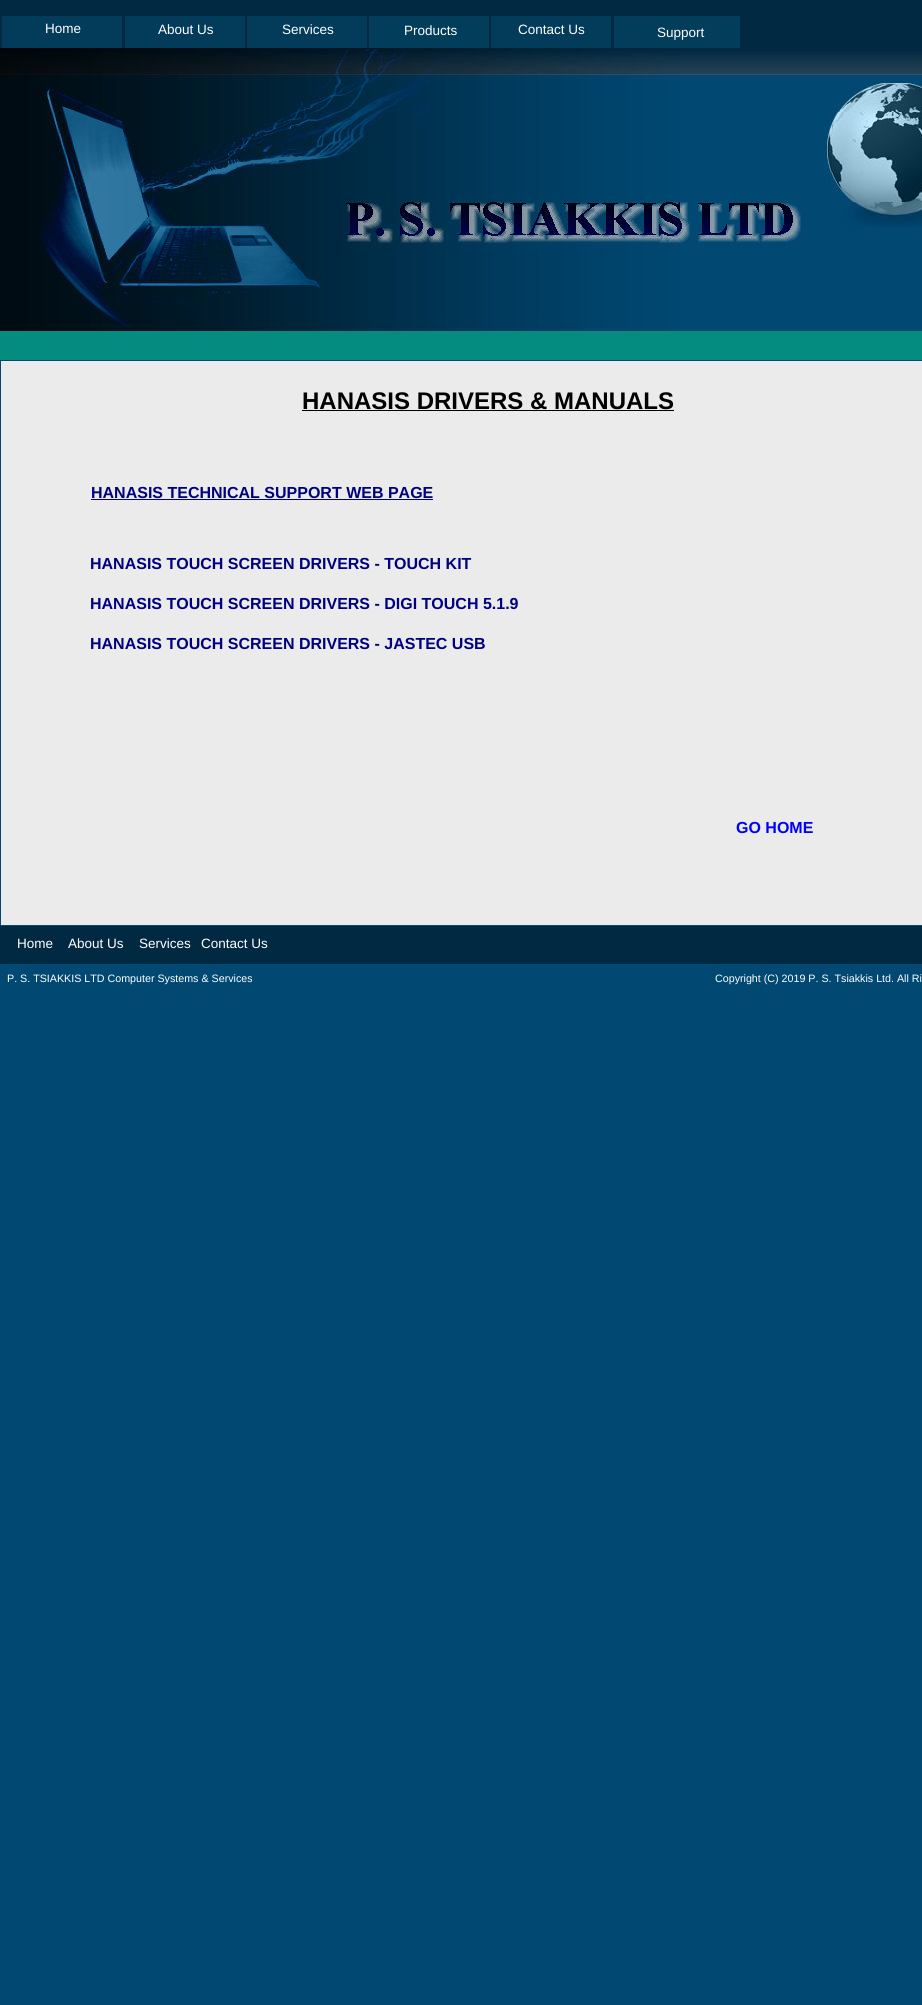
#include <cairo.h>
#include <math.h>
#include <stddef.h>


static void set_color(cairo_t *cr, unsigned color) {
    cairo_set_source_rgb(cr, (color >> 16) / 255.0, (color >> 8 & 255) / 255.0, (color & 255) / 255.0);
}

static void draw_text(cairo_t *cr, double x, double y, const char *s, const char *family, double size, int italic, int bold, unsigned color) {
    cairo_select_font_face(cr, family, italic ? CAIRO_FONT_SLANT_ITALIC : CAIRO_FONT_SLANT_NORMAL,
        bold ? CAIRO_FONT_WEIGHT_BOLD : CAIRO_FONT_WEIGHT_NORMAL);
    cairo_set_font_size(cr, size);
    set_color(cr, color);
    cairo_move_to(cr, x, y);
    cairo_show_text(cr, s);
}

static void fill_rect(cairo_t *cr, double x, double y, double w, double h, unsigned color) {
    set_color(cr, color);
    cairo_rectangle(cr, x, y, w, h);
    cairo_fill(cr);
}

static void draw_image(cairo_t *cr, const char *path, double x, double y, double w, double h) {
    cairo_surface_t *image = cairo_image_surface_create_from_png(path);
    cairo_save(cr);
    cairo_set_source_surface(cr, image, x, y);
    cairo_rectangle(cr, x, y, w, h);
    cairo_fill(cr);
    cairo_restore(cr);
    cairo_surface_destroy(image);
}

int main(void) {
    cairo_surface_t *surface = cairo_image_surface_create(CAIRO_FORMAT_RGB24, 922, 2005);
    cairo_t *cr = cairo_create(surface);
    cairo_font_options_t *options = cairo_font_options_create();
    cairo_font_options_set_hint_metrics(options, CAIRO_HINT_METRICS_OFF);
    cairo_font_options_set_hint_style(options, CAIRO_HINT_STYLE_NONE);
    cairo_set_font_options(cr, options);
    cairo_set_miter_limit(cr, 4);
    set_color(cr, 0x014872);
    cairo_paint(cr);
    draw_image(cr, "assets/img1.png", 0, 0, 922, 75);
    fill_rect(cr, 2, 16, 120, 32, 0x033C5A);
    fill_rect(cr, 125, 16, 120, 32, 0x033C5A);
    fill_rect(cr, 247, 16, 120, 32, 0x033C5A);
    fill_rect(cr, 369, 16, 120, 32, 0x023D5B);
    fill_rect(cr, 491, 16, 120, 32, 0x033C5A);
    fill_rect(cr, 614, 16, 126, 32, 0x023D5B);
    draw_text(cr, 45, 33, "Home", "Liberation Sans", 13.5, 0, 0, 0xFFFFFF);
    draw_text(cr, 158, 34, "About Us", "Liberation Sans", 13.5, 0, 0, 0xFFFFFF);
    draw_text(cr, 282, 34, "Services", "Liberation Sans", 13.5, 0, 0, 0xFFFFFF);
    draw_text(cr, 404, 35, "Products", "Liberation Sans", 13.5, 0, 0, 0xFFFFFF);
    draw_text(cr, 518, 34, "Contact Us", "Liberation Sans", 13.5, 0, 0, 0xFFFFFF);
    draw_text(cr, 657, 37, "Support", "Liberation Sans", 13.5, 0, 0, 0xFFFFFF);
    draw_image(cr, "assets/img2.png", 0, 48, 680, 283);
    draw_image(cr, "assets/img3.png", 827, 83, 95, 144);
    draw_image(cr, "assets/img4.png", 345, 200, 456, 48);
    fill_rect(cr, 0, 331, 922, 29, 0x048C80);
    fill_rect(cr, 1, 361, 921, 564, 0xEBEBEB);
    draw_text(cr, 302, 409, "HANASIS DRIVERS & MANUALS", "Liberation Sans", 24, 0, 1, 0x000000);
    fill_rect(cr, 302, 410, 372, 1, 0x000000);
    draw_text(cr, 91, 498, "HANASIS TECHNICAL SUPPORT WEB PAGE", "Liberation Sans", 16, 0, 1, 0x000080);
    fill_rect(cr, 91, 499, 342, 1, 0x000080);
    draw_text(cr, 90, 569, "HANASIS TOUCH SCREEN DRIVERS - TOUCH KIT", "Liberation Sans", 16, 0, 1, 0x000080);
    draw_text(cr, 90, 609, "HANASIS TOUCH SCREEN DRIVERS - DIGI TOUCH 5.1.9", "Liberation Sans", 16, 0, 1, 0x000080);
    draw_text(cr, 90, 649, "HANASIS TOUCH SCREEN DRIVERS - JASTEC USB", "Liberation Sans", 16, 0, 1, 0x000080);
    draw_text(cr, 736, 833, "GO HOME", "Liberation Sans", 16, 0, 1, 0x0000FF);
    fill_rect(cr, 0, 926, 922, 38, 0x012942);
    draw_text(cr, 17, 948, "Home", "Liberation Sans", 13.5, 0, 0, 0xFFFFFF);
    draw_text(cr, 68, 948, "About Us", "Liberation Sans", 13.5, 0, 0, 0xFFFFFF);
    draw_text(cr, 139, 948, "Services", "Liberation Sans", 13.5, 0, 0, 0xFFFFFF);
    draw_text(cr, 201, 948, "Contact Us", "Liberation Sans", 13.5, 0, 0, 0xFFFFFF);
    draw_text(cr, 7, 982, "P. S. TSIAKKIS LTD Computer Systems & Services", "Liberation Sans", 10.7, 0, 0, 0xFFFFFF);
    draw_text(cr, 715, 982, "Copyright (C) 2019 P. S. Tsiakkis Ltd. All Ri", "Liberation Sans", 10.7, 0, 0, 0xFFFFFF);
    cairo_surface_write_to_png(surface, "output.png");
    cairo_font_options_destroy(options);
    cairo_destroy(cr);
    cairo_surface_destroy(surface);
    return 0;
}
